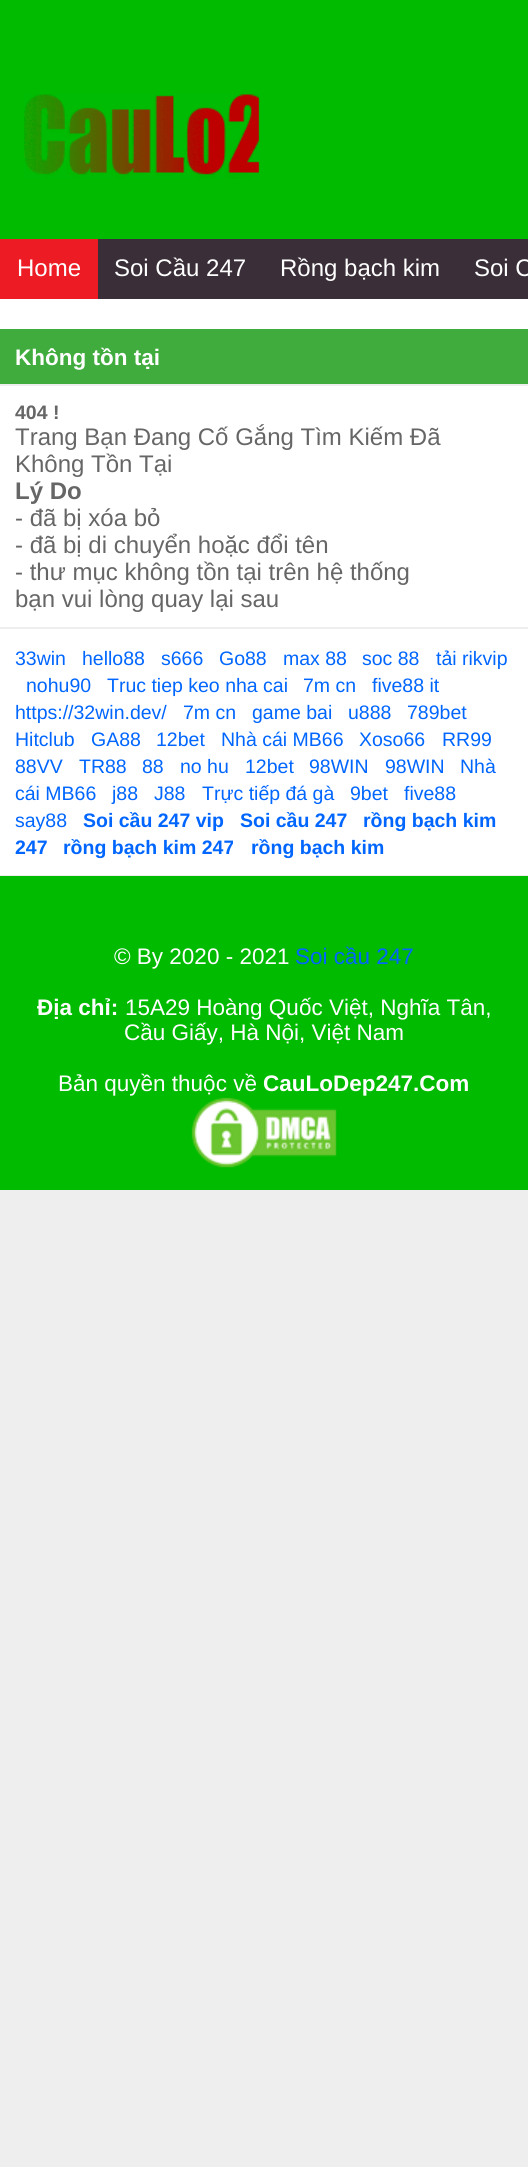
#include <cairo.h>
#include <math.h>
#include <stddef.h>


static void set_color(cairo_t *cr, unsigned color) {
    cairo_set_source_rgb(cr, (color >> 16) / 255.0, (color >> 8 & 255) / 255.0, (color & 255) / 255.0);
}

static void draw_text(cairo_t *cr, double x, double y, const char *s, const char *family, double size, int italic, int bold, unsigned color) {
    cairo_select_font_face(cr, family, italic ? CAIRO_FONT_SLANT_ITALIC : CAIRO_FONT_SLANT_NORMAL,
        bold ? CAIRO_FONT_WEIGHT_BOLD : CAIRO_FONT_WEIGHT_NORMAL);
    cairo_set_font_size(cr, size);
    set_color(cr, color);
    cairo_move_to(cr, x, y);
    cairo_show_text(cr, s);
}

static void fill_rect(cairo_t *cr, double x, double y, double w, double h, unsigned color) {
    set_color(cr, color);
    cairo_rectangle(cr, x, y, w, h);
    cairo_fill(cr);
}

static void draw_image(cairo_t *cr, const char *path, double x, double y, double w, double h) {
    cairo_surface_t *image = cairo_image_surface_create_from_png(path);
    cairo_save(cr);
    cairo_set_source_surface(cr, image, x, y);
    cairo_rectangle(cr, x, y, w, h);
    cairo_fill(cr);
    cairo_restore(cr);
    cairo_surface_destroy(image);
}

int main(void) {
    cairo_surface_t *surface = cairo_image_surface_create(CAIRO_FORMAT_RGB24, 528, 2167);
    cairo_t *cr = cairo_create(surface);
    cairo_font_options_t *options = cairo_font_options_create();
    cairo_font_options_set_hint_metrics(options, CAIRO_HINT_METRICS_OFF);
    cairo_font_options_set_hint_style(options, CAIRO_HINT_STYLE_NONE);
    cairo_set_font_options(cr, options);
    cairo_set_miter_limit(cr, 4);
    set_color(cr, 0xEEEEEE);
    cairo_paint(cr);
    fill_rect(cr, 0, 0, 528, 239, 0x00BB00);
    draw_image(cr, "assets/img1.png", 24, 94, 236, 85);
    fill_rect(cr, 98, 239, 430, 60, 0x3A2F38);
    fill_rect(cr, 0, 239, 98, 60, 0xED1C24);
    draw_text(cr, 17, 276, "Home", "Liberation Sans", 24, 0, 0, 0xFFFFFF);
    draw_text(cr, 114, 276, "Soi Cầu 247", "Liberation Sans", 24, 0, 0, 0xFFFFFF);
    draw_text(cr, 280, 276, "Rồng bạch kim", "Liberation Sans", 24, 0, 0, 0xFFFFFF);
    draw_text(cr, 474, 276, "Soi C", "Liberation Sans", 24, 0, 0, 0xFFFFFF);
    fill_rect(cr, 0, 299, 528, 30, 0xFFFFFF);
    fill_rect(cr, 0, 329, 528, 55, 0x40AC3D);
    draw_text(cr, 15, 365, "Không tồn tại", "Liberation Sans", 22.5, 0, 1, 0xFFFFFF);
    fill_rect(cr, 0, 386, 528, 241, 0xFFFFFF);
    draw_text(cr, 15, 419, "404 !", "Liberation Sans", 19.5, 0, 1, 0x666666);
    draw_text(cr, 15, 445, "Trang Bạn Đang Cố Gắng Tìm Kiếm Đã", "Liberation Sans", 24, 0, 0, 0x666666);
    draw_text(cr, 15, 472, "Không Tồn Tại", "Liberation Sans", 24, 0, 0, 0x666666);
    draw_text(cr, 15, 499, "Lý Do", "Liberation Sans", 24, 0, 1, 0x666666);
    draw_text(cr, 15, 526, "- đã bị xóa bỏ", "Liberation Sans", 24, 0, 0, 0x666666);
    draw_text(cr, 15, 553, "- đã bị di chuyển hoặc đổi tên", "Liberation Sans", 24, 0, 0, 0x666666);
    draw_text(cr, 15, 580, "- thư mục không tồn tại trên hệ thống", "Liberation Sans", 24, 0, 0, 0x666666);
    draw_text(cr, 15, 607, "bạn vui lòng quay lại sau", "Liberation Sans", 24, 0, 0, 0x666666);
    fill_rect(cr, 0, 629, 528, 246, 0xFFFFFF);
    draw_text(cr, 15, 665, "33win", "Liberation Sans", 19.5, 0, 0, 0x0066FF);
    draw_text(cr, 82, 665, "hello88", "Liberation Sans", 19.5, 0, 0, 0x0066FF);
    draw_text(cr, 161, 665, "s666", "Liberation Sans", 19.5, 0, 0, 0x0066FF);
    draw_text(cr, 219, 665, "Go88", "Liberation Sans", 19.5, 0, 0, 0x0066FF);
    draw_text(cr, 283, 665, "max 88", "Liberation Sans", 19.5, 0, 0, 0x0066FF);
    draw_text(cr, 362, 665, "soc 88", "Liberation Sans", 19.5, 0, 0, 0x0066FF);
    draw_text(cr, 436, 665, "tải rikvip", "Liberation Sans", 19.5, 0, 0, 0x0066FF);
    draw_text(cr, 26, 692, "nohu90", "Liberation Sans", 19.5, 0, 0, 0x0066FF);
    draw_text(cr, 107, 692, "Truc tiep keo nha cai", "Liberation Sans", 19.5, 0, 0, 0x0066FF);
    draw_text(cr, 303, 692, "7m cn", "Liberation Sans", 19.5, 0, 0, 0x0066FF);
    draw_text(cr, 372, 692, "five88 it", "Liberation Sans", 19.5, 0, 0, 0x0066FF);
    draw_text(cr, 15, 719, "https://32win.dev/", "Liberation Sans", 19.5, 0, 0, 0x0066FF);
    draw_text(cr, 183, 719, "7m cn", "Liberation Sans", 19.5, 0, 0, 0x0066FF);
    draw_text(cr, 252, 719, "game bai", "Liberation Sans", 19.5, 0, 0, 0x0066FF);
    draw_text(cr, 348, 719, "u888", "Liberation Sans", 19.5, 0, 0, 0x0066FF);
    draw_text(cr, 407, 719, "789bet", "Liberation Sans", 19.5, 0, 0, 0x0066FF);
    draw_text(cr, 15, 746, "Hitclub", "Liberation Sans", 19.5, 0, 0, 0x0066FF);
    draw_text(cr, 91, 746, "GA88", "Liberation Sans", 19.5, 0, 0, 0x0066FF);
    draw_text(cr, 156, 746, "12bet", "Liberation Sans", 19.5, 0, 0, 0x0066FF);
    draw_text(cr, 221, 746, "Nhà cái MB66", "Liberation Sans", 19.5, 0, 0, 0x0066FF);
    draw_text(cr, 359, 746, "Xoso66", "Liberation Sans", 19.5, 0, 0, 0x0066FF);
    draw_text(cr, 442, 746, "RR99", "Liberation Sans", 19.5, 0, 0, 0x0066FF);
    draw_text(cr, 15, 773, "88VV", "Liberation Sans", 19.5, 0, 0, 0x0066FF);
    draw_text(cr, 79, 773, "TR88", "Liberation Sans", 19.5, 0, 0, 0x0066FF);
    draw_text(cr, 142, 773, "88", "Liberation Sans", 19.5, 0, 0, 0x0066FF);
    draw_text(cr, 180, 773, "no hu", "Liberation Sans", 19.5, 0, 0, 0x0066FF);
    draw_text(cr, 245, 773, "12bet", "Liberation Sans", 19.5, 0, 0, 0x0066FF);
    draw_text(cr, 309, 773, "98WIN", "Liberation Sans", 19.5, 0, 0, 0x0066FF);
    draw_text(cr, 385, 773, "98WIN", "Liberation Sans", 19.5, 0, 0, 0x0066FF);
    draw_text(cr, 460, 773, "Nhà", "Liberation Sans", 19.5, 0, 0, 0x0066FF);
    draw_text(cr, 15, 800, "cái MB66", "Liberation Sans", 19.5, 0, 0, 0x0066FF);
    draw_text(cr, 112, 800, "j88", "Liberation Sans", 19.5, 0, 0, 0x0066FF);
    draw_text(cr, 154, 800, "J88", "Liberation Sans", 19.5, 0, 0, 0x0066FF);
    draw_text(cr, 202, 800, "Trực tiếp đá gà", "Liberation Sans", 19.5, 0, 0, 0x0066FF);
    draw_text(cr, 350, 800, "9bet", "Liberation Sans", 19.5, 0, 0, 0x0066FF);
    draw_text(cr, 404, 800, "five88", "Liberation Sans", 19.5, 0, 0, 0x0066FF);
    draw_text(cr, 15, 827, "say88", "Liberation Sans", 19.5, 0, 0, 0x0066FF);
    draw_text(cr, 83, 827, "Soi cầu 247 vip", "Liberation Sans", 19.5, 0, 1, 0x0066FF);
    draw_text(cr, 240, 827, "Soi cầu 247", "Liberation Sans", 19.5, 0, 1, 0x0066FF);
    draw_text(cr, 363, 827, "rồng bạch kim", "Liberation Sans", 19.5, 0, 1, 0x0066FF);
    draw_text(cr, 15, 854, "247", "Liberation Sans", 19.5, 0, 1, 0x0066FF);
    draw_text(cr, 63, 854, "rồng bạch kim 247", "Liberation Sans", 19.5, 0, 1, 0x0066FF);
    draw_text(cr, 251, 854, "rồng bạch kim", "Liberation Sans", 19.5, 0, 1, 0x0066FF);
    fill_rect(cr, 0, 876, 528, 314, 0x00BB00);
    draw_text(cr, 114, 964, "© By 2020 - 2021", "Liberation Sans", 22.5, 0, 0, 0xFFFFFF);
    draw_text(cr, 295, 964, "Soi cầu 247", "Liberation Sans", 22.5, 0, 0, 0x0066FF);
    draw_text(cr, 37, 1015, "Địa chỉ:", "Liberation Sans", 22.5, 0, 1, 0xFFFFFF);
    draw_text(cr, 125, 1015, "15A29 Hoàng Quốc Việt, Nghĩa Tân,", "Liberation Sans", 22.5, 0, 0, 0xFFFFFF);
    draw_text(cr, 124, 1040, "Cầu Giấy, Hà Nội, Việt Nam", "Liberation Sans", 22.5, 0, 0, 0xFFFFFF);
    draw_text(cr, 58, 1091, "Bản quyền thuộc về", "Liberation Sans", 22.5, 0, 0, 0xFFFFFF);
    draw_text(cr, 263, 1091, "CauLoDep247.Com", "Liberation Sans", 22.5, 0, 1, 0xFFFFFF);
    draw_image(cr, "assets/img2.png", 191, 1097, 146, 71);
    cairo_surface_write_to_png(surface, "output.png");
    cairo_font_options_destroy(options);
    cairo_destroy(cr);
    cairo_surface_destroy(surface);
    return 0;
}
